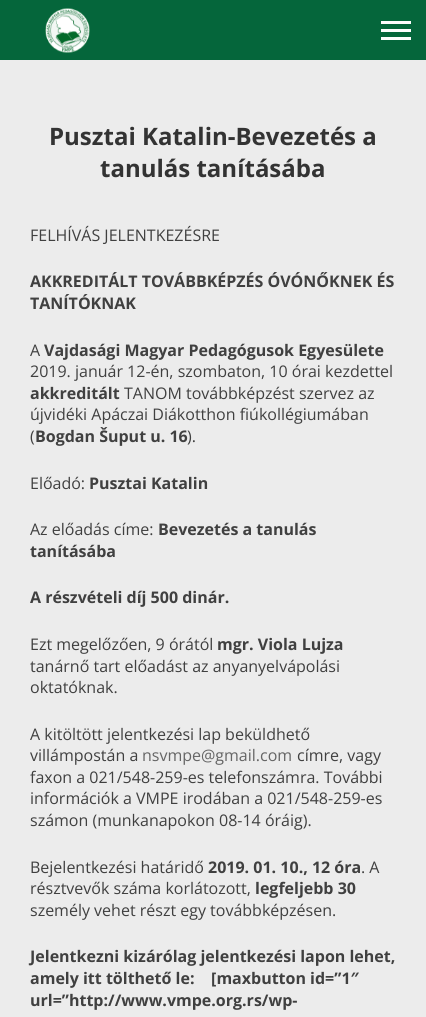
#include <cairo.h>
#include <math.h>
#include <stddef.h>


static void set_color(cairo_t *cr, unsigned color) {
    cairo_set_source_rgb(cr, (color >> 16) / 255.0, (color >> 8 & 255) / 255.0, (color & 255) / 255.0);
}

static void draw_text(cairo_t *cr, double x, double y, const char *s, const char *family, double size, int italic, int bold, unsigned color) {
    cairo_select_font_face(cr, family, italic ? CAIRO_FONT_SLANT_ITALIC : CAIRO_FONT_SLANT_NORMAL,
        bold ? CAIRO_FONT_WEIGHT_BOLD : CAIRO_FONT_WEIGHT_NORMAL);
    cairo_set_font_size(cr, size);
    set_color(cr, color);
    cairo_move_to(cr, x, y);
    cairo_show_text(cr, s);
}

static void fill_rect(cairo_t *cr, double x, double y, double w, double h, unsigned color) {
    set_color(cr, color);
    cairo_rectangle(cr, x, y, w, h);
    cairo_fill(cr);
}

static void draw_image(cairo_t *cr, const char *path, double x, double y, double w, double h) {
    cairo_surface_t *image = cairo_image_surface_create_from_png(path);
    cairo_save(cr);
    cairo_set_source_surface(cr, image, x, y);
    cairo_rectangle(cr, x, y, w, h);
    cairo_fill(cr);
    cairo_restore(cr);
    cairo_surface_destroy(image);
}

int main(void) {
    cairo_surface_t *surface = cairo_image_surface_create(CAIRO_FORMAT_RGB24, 426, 1017);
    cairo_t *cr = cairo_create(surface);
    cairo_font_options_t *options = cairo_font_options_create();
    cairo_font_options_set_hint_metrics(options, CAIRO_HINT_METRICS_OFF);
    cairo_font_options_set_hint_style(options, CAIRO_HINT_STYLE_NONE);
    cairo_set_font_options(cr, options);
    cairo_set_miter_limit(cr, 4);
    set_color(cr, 0xECECEC);
    cairo_paint(cr);
    fill_rect(cr, 0, 0, 426, 60, 0x05663B);
    draw_image(cr, "assets/img1.png", 45, 8, 45, 45);
    fill_rect(cr, 381, 21, 30, 3, 0xFDFDFD);
    fill_rect(cr, 381, 29, 30, 3, 0xFDFDFD);
    fill_rect(cr, 381, 37, 30, 3, 0xFDFDFD);
    draw_text(cr, 49, 145, "Pusztai Katalin-Bevezetés a", "Open Sans", 24, 0, 1, 0x333333);
    draw_text(cr, 100, 177, "tanulás tanításába", "Open Sans", 24, 0, 1, 0x333333);
    draw_text(cr, 30, 241, "FELHÍVÁS JELENTKEZÉSRE", "Open Sans", 16, 0, 0, 0x404040);
    draw_text(cr, 30, 287, "AKKREDITÁLT TOVÁBBKÉPZÉS ÓVÓNŐKNEK ÉS", "Open Sans", 16, 0, 1, 0x404040);
    draw_text(cr, 30, 309, "TANÍTÓKNAK", "Open Sans", 16, 0, 1, 0x404040);
    draw_text(cr, 30, 356, "A", "Open Sans", 16, 0, 0, 0x404040);
    draw_text(cr, 44, 356, "Vajdasági Magyar Pedagógusok Egyesülete", "Open Sans", 16, 0, 1, 0x404040);
    draw_text(cr, 30, 377, "2019. január 12-én, szombaton, 10 órai kezdettel", "Open Sans", 16, 0, 0, 0x404040);
    draw_text(cr, 30, 399, "akkreditált", "Open Sans", 16, 0, 1, 0x404040);
    draw_text(cr, 124, 399, "TANOM továbbképzést szervez az", "Open Sans", 16, 0, 0, 0x404040);
    draw_text(cr, 30, 420, "újvidéki Apáczai Diákotthon fiúkollégiumában", "Open Sans", 16, 0, 0, 0x404040);
    draw_text(cr, 30, 442, "(", "Open Sans", 16, 0, 0, 0x404040);
    draw_text(cr, 35, 442, "Bogdan Šuput u. 16", "Open Sans", 16, 0, 1, 0x404040);
    draw_text(cr, 187, 442, ").", "Open Sans", 16, 0, 0, 0x404040);
    draw_text(cr, 30, 489, "Előadó:", "Open Sans", 16, 0, 0, 0x404040);
    draw_text(cr, 89, 489, "Pusztai Katalin", "Open Sans", 16, 0, 1, 0x404040);
    draw_text(cr, 30, 535, "Az előadás címe:", "Open Sans", 16, 0, 0, 0x404040);
    draw_text(cr, 158, 535, "Bevezetés a tanulás", "Open Sans", 16, 0, 1, 0x404040);
    draw_text(cr, 30, 557, "tanításába", "Open Sans", 16, 0, 1, 0x404040);
    draw_text(cr, 30, 603, "А részvételi díj 500 dinár.", "Open Sans", 16, 0, 1, 0x404040);
    draw_text(cr, 30, 650, "Ezt megelőzően, 9 órától", "Open Sans", 16, 0, 0, 0x404040);
    draw_text(cr, 217, 650, "mgr. Viola Lujza", "Open Sans", 16, 0, 1, 0x404040);
    draw_text(cr, 30, 672, "tanárnő tart előadást az anyanyelvápolási", "Open Sans", 16, 0, 0, 0x404040);
    draw_text(cr, 30, 693, "oktatóknak.", "Open Sans", 16, 0, 0, 0x404040);
    draw_text(cr, 30, 740, "A kitöltött jelentkezési lap beküldhető", "Open Sans", 16, 0, 0, 0x404040);
    draw_text(cr, 30, 761, "villámpostán a", "Open Sans", 16, 0, 0, 0x404040);
    draw_text(cr, 142, 761, "nsvmpe@gmail.com", "Open Sans", 16, 0, 0, 0x656565);
    draw_text(cr, 297, 761, "címre, vagy", "Open Sans", 16, 0, 0, 0x404040);
    draw_text(cr, 30, 783, "faxon a 021/548-259-es telefonszámra. További", "Open Sans", 16, 0, 0, 0x404040);
    draw_text(cr, 30, 804, "információk a VMPE irodában a 021/548-259-es", "Open Sans", 16, 0, 0, 0x404040);
    draw_text(cr, 30, 826, "számon (munkanapokon 08-14 óráig).", "Open Sans", 16, 0, 0, 0x404040);
    draw_text(cr, 30, 873, "Bejelentkezési határidő", "Open Sans", 16, 0, 0, 0x404040);
    draw_text(cr, 208, 873, "2019. 01. 10., 12 óra", "Open Sans", 16, 0, 1, 0x404040);
    draw_text(cr, 361, 873, ". A", "Open Sans", 16, 0, 0, 0x404040);
    draw_text(cr, 30, 894, "résztvevők száma korlátozott,", "Open Sans", 16, 0, 0, 0x404040);
    draw_text(cr, 255, 894, "legfeljebb 30", "Open Sans", 16, 0, 1, 0x404040);
    draw_text(cr, 30, 916, "személy vehet részt egy továbbképzésen.", "Open Sans", 16, 0, 0, 0x404040);
    draw_text(cr, 30, 962, "Jelentkezni kizárólag jelentkezési lapon lehet,", "Open Sans", 16, 0, 1, 0x404040);
    draw_text(cr, 30, 984, "amely itt tölthető le:    [maxbutton id=”1″", "Open Sans", 16, 0, 1, 0x404040);
    draw_text(cr, 30, 1006, "url=”http://www.vmpe.org.rs/wp-", "Open Sans", 16, 0, 1, 0x404040);
    cairo_surface_write_to_png(surface, "output.png");
    cairo_font_options_destroy(options);
    cairo_destroy(cr);
    cairo_surface_destroy(surface);
    return 0;
}
